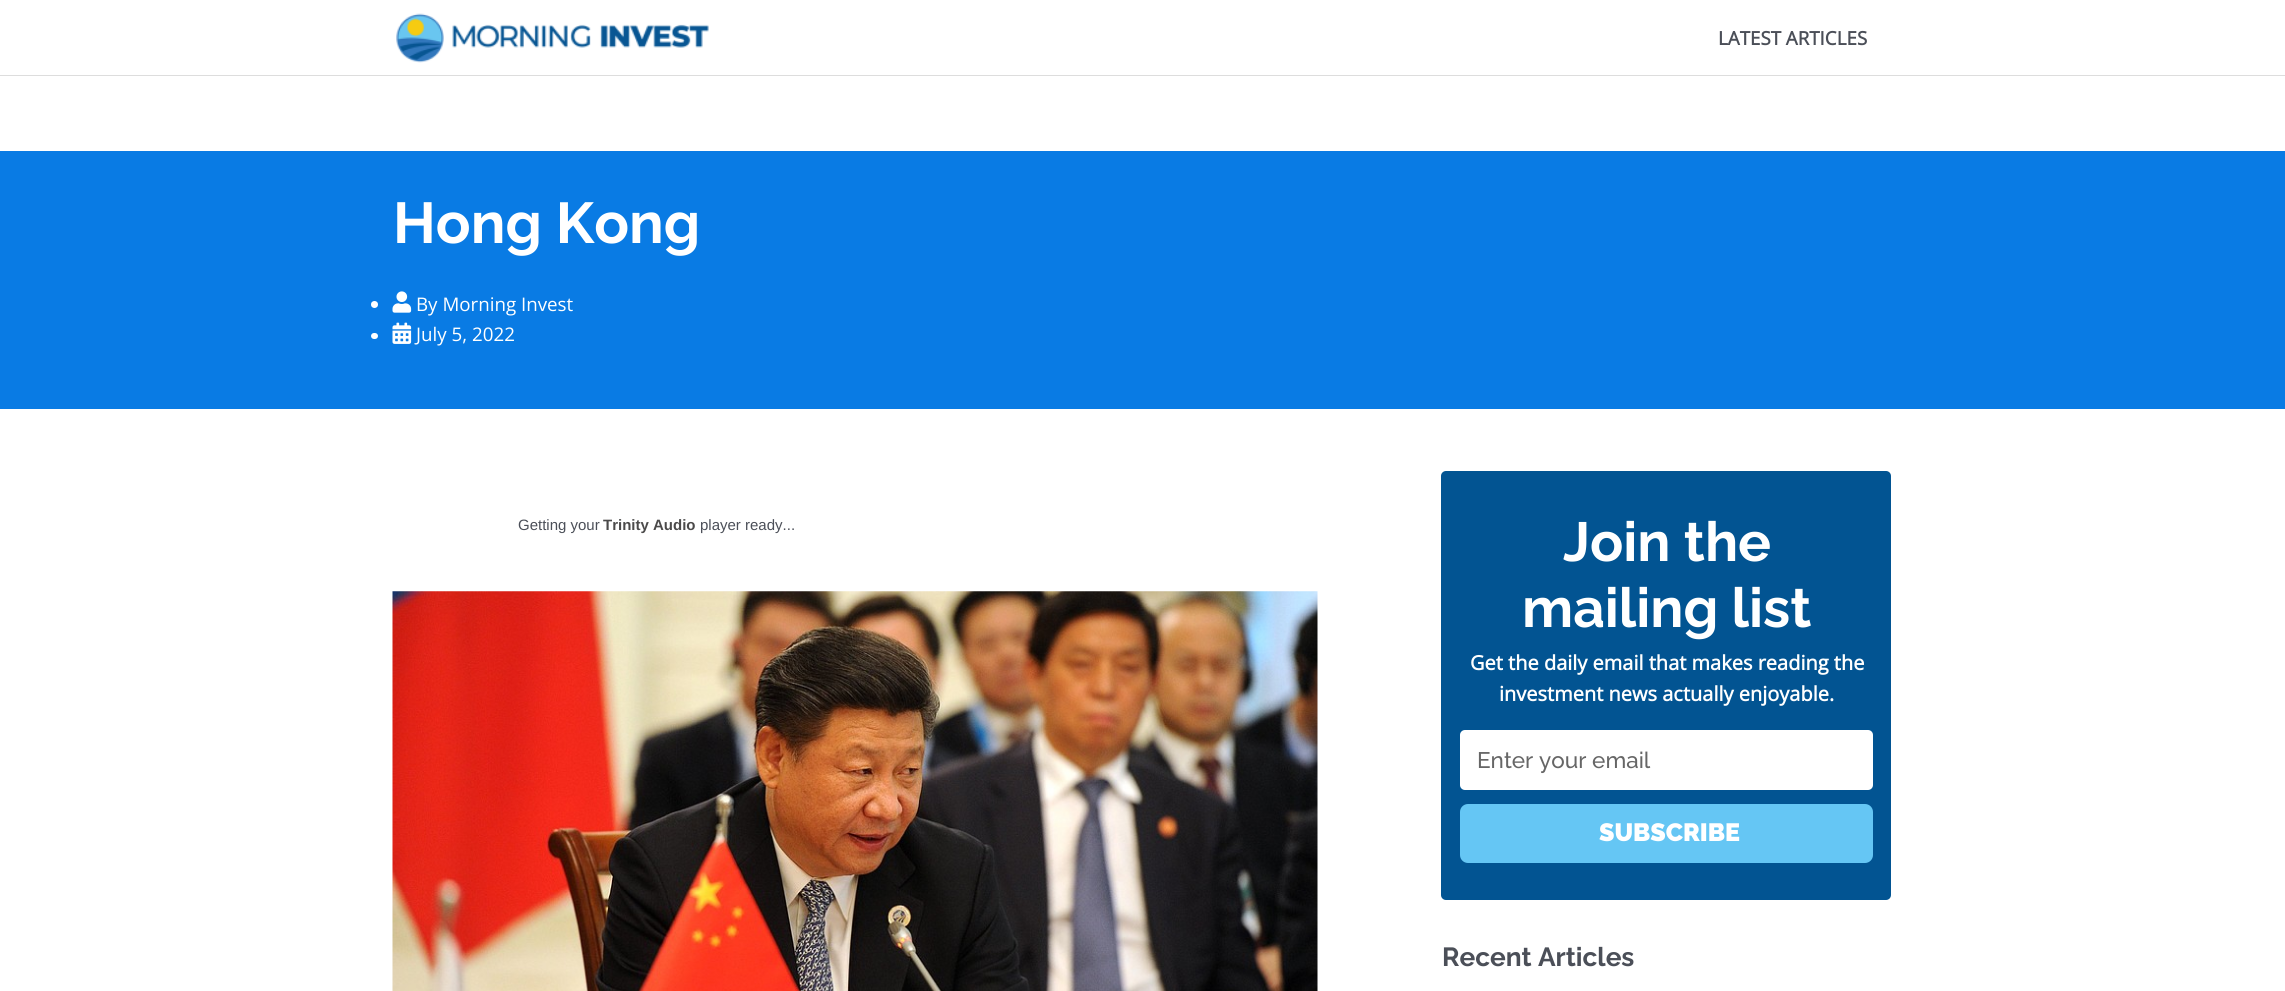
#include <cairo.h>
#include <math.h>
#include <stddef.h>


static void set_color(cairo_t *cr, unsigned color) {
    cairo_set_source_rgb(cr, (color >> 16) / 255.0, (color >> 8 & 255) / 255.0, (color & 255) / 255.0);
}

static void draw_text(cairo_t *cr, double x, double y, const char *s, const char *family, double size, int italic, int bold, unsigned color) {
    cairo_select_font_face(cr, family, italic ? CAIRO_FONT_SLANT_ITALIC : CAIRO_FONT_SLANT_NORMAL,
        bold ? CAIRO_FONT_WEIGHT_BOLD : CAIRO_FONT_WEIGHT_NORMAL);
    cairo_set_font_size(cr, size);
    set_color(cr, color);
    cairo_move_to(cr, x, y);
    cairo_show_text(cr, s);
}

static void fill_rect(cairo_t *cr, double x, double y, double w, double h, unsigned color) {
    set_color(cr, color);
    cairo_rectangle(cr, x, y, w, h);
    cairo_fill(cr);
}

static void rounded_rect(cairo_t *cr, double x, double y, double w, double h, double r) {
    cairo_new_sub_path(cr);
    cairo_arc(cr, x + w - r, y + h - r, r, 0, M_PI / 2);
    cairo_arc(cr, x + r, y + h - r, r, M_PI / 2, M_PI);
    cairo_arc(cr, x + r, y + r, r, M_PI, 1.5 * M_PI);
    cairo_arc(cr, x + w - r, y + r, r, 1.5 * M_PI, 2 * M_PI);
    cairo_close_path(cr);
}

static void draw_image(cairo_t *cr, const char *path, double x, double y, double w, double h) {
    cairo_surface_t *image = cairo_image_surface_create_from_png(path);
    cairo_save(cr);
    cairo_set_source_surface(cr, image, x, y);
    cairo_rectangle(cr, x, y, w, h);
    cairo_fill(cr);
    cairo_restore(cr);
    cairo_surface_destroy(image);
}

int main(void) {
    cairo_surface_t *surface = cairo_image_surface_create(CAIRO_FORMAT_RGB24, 2285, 991);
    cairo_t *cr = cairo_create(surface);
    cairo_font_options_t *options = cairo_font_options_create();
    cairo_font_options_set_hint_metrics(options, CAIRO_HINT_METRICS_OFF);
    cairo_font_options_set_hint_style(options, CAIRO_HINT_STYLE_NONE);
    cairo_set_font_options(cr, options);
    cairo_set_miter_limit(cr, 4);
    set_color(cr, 0xFFFFFF);
    cairo_paint(cr);
    fill_rect(cr, 0, 75, 2285, 1, 0xDDDDDD);
    draw_image(cr, "assets/img1.png", 396, 13, 313, 50);
    draw_text(cr, 1718, 45, "LATEST ARTICLES", "Open Sans", 18.75, 0, 1, 0x4B4F58);
    fill_rect(cr, 0, 151, 2285, 258, 0x097BE4);
    draw_text(cr, 393, 243, "Hong Kong", "Raleway", 57.5, 0, 1, 0xFFFFFF);
    cairo_new_path(cr);
    cairo_arc(cr, 374.5, 304.5, 3.5, 0, 2 * M_PI);
    cairo_fill(cr);
    draw_image(cr, "assets/img2.png", 392, 291, 20, 22);
    draw_text(cr, 416, 311, "By Morning Invest", "Open Sans", 18.75, 0, 0, 0xFFFFFF);
    rounded_rect(cr, 371, 333, 7, 6, 3);
    cairo_fill(cr);
    draw_image(cr, "assets/img3.png", 392, 322, 20, 22);
    draw_text(cr, 416, 341, "July 5, 2022", "Open Sans", 18.75, 0, 0, 0xFFFFFF);
    draw_text(cr, 518, 530, "Getting your", "Liberation Sans", 15, 0, 0, 0x4B4F58);
    draw_text(cr, 603, 530, "Trinity Audio", "Liberation Sans", 15, 0, 1, 0x4B4A4A);
    draw_text(cr, 700, 530, "player ready...", "Liberation Sans", 15, 0, 0, 0x4B4F58);
    draw_image(cr, "assets/img4.png", 392, 591, 926, 400);
    set_color(cr, 0x025492);
    rounded_rect(cr, 1441, 471, 450, 429, 5);
    cairo_fill(cr);
    draw_text(cr, 1563, 561, "Join the", "Raleway", 55, 0, 1, 0xFFFFFF);
    draw_text(cr, 1522, 627, "mailing list", "Raleway", 55, 0, 1, 0xFFFFFF);
    draw_text(cr, 1470, 670, "Get the daily email that makes reading the", "Open Sans", 20, 0, 1, 0xFFFFFF);
    draw_text(cr, 1499, 701, "investment news actually enjoyable.", "Open Sans", 20, 0, 1, 0xFFFFFF);
    rounded_rect(cr, 1460, 730, 413, 60, 5);
    cairo_fill(cr);
    draw_text(cr, 1477, 768, "Enter your email", "Raleway Medium", 22.5, 0, 0, 0x666666);
    set_color(cr, 0x65C6F4);
    rounded_rect(cr, 1460, 804, 413, 59, 8);
    cairo_fill(cr);
    draw_text(cr, 1599, 841, "SUBSCRIBE", "Raleway Black", 25, 0, 0, 0xFFFFFF);
    draw_text(cr, 1442, 966, "Recent Articles", "Raleway", 26.25, 0, 1, 0x4B4F58);
    cairo_surface_write_to_png(surface, "output.png");
    cairo_font_options_destroy(options);
    cairo_destroy(cr);
    cairo_surface_destroy(surface);
    return 0;
}
